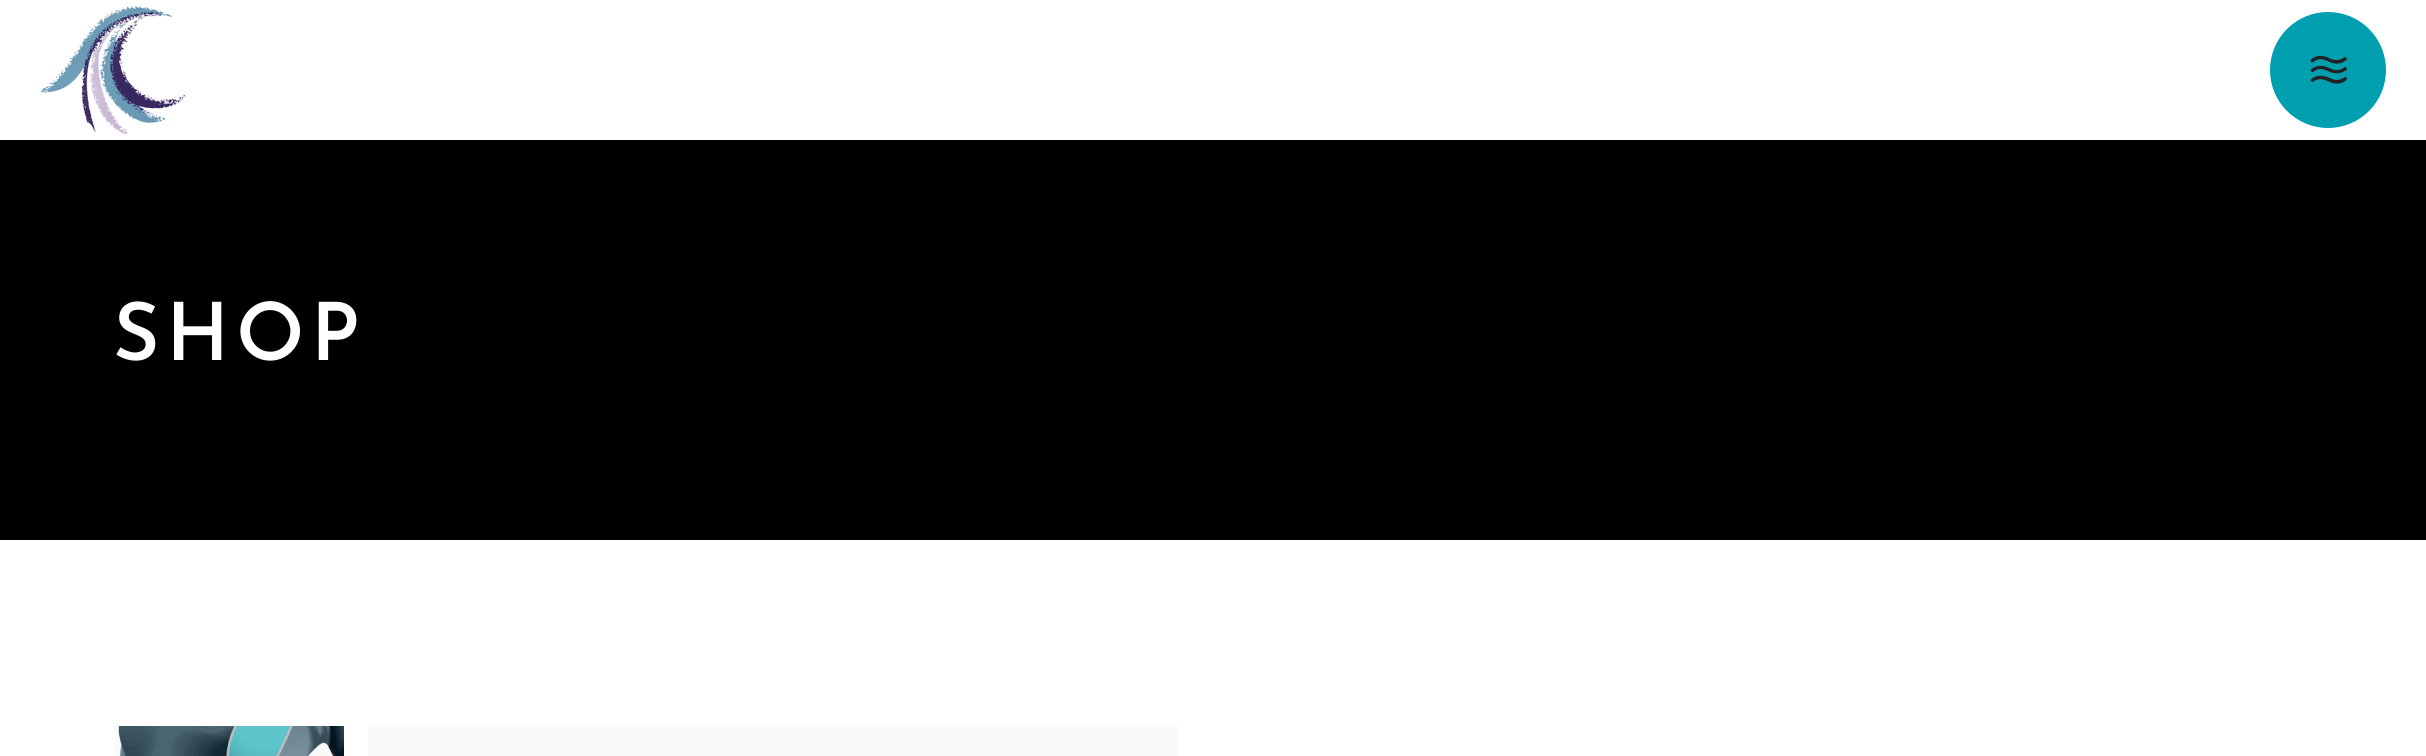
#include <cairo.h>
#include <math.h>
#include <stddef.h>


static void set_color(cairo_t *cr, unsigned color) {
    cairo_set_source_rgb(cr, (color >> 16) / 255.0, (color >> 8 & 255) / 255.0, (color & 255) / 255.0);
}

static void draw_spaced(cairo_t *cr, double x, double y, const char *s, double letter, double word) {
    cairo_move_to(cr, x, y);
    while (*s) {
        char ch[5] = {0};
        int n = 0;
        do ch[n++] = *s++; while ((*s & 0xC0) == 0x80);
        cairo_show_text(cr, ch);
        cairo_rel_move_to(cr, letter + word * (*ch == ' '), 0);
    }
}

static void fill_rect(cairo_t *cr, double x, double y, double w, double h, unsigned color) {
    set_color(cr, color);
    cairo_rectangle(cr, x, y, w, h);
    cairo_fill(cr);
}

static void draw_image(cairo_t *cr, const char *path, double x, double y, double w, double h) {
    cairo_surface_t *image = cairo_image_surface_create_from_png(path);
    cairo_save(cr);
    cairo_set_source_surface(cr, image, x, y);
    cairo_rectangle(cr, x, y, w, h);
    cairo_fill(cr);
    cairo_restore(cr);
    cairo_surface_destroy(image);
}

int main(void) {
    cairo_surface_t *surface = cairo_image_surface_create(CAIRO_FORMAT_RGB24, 2426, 756);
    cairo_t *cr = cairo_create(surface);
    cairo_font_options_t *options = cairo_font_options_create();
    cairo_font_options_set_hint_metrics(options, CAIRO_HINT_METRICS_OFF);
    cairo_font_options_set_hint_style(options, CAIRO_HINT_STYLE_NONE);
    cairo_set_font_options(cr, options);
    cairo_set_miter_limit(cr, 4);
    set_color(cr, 0xFFFFFF);
    cairo_paint(cr);
    draw_image(cr, "assets/img1.png", 40, 6, 146, 128);
    set_color(cr, 0x009FB0);
    cairo_arc(cr, 2328, 70, 58, 0, 2 * M_PI);
    cairo_fill(cr);
    draw_image(cr, "assets/img2.png", 2310, 55, 37, 29);
    fill_rect(cr, 0, 140, 2426, 400, 0x000000);
    cairo_select_font_face(cr, "Josefin Sans SemiBold", CAIRO_FONT_SLANT_NORMAL, CAIRO_FONT_WEIGHT_NORMAL);
    cairo_set_font_size(cr, 80);
    set_color(cr, 0xFFFFFF);
    draw_spaced(cr, 113, 360, "SHOP", 6.5, 0);
    draw_image(cr, "assets/img3.png", 114, 726, 230, 30);
    fill_rect(cr, 368, 726, 810, 30, 0xFAFAFA);
    cairo_surface_write_to_png(surface, "output.png");
    cairo_font_options_destroy(options);
    cairo_destroy(cr);
    cairo_surface_destroy(surface);
    return 0;
}
